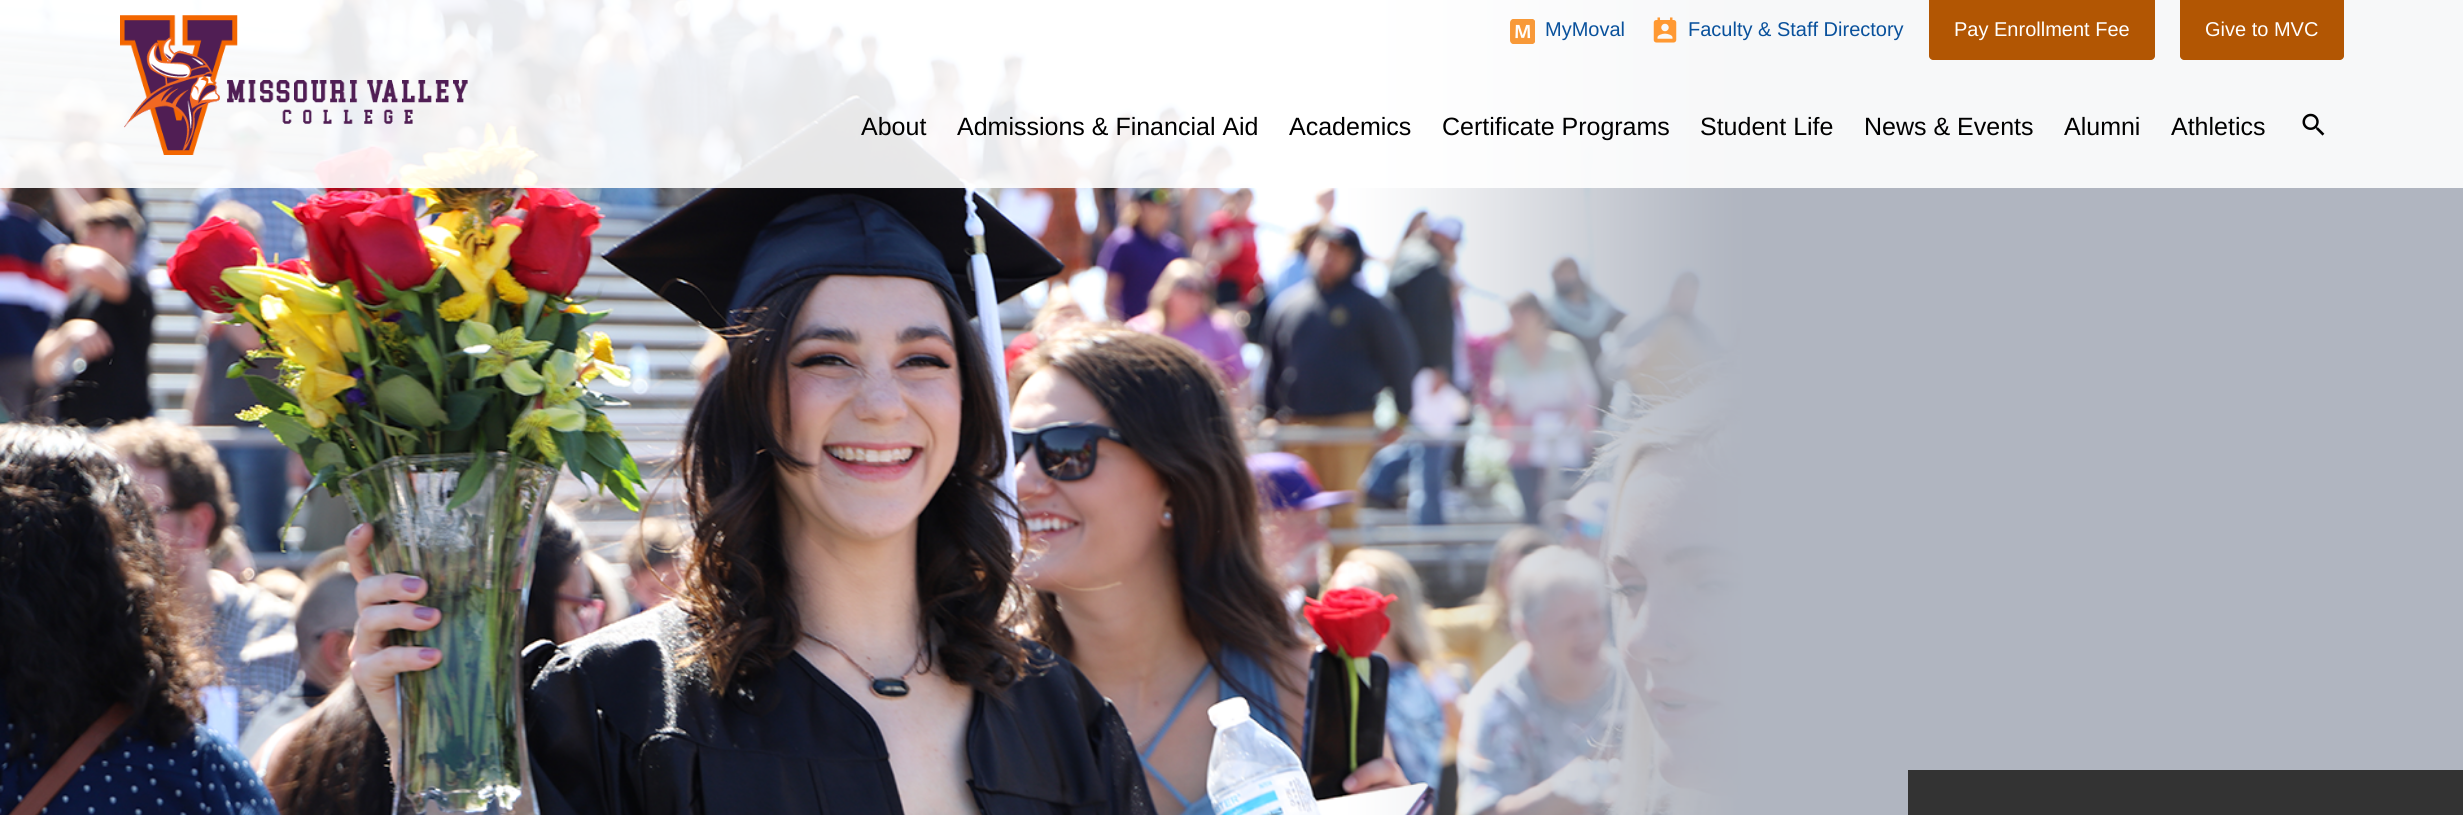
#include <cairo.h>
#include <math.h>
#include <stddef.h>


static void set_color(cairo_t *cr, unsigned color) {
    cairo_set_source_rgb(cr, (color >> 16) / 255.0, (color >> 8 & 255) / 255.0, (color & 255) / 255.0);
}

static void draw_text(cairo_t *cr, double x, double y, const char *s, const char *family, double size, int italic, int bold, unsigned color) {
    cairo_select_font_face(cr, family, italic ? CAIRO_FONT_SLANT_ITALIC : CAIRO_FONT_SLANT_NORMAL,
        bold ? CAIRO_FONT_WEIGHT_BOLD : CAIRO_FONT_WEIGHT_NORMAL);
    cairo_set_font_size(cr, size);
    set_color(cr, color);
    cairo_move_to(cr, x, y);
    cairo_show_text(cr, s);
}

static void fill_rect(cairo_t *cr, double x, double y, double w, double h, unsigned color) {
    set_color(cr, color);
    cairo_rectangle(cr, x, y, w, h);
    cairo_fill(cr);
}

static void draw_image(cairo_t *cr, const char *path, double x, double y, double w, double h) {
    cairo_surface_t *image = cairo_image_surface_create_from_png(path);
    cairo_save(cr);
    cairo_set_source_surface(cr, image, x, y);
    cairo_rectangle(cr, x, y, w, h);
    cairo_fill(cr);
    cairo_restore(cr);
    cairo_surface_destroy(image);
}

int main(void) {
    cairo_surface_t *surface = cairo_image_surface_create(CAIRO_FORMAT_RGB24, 2463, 815);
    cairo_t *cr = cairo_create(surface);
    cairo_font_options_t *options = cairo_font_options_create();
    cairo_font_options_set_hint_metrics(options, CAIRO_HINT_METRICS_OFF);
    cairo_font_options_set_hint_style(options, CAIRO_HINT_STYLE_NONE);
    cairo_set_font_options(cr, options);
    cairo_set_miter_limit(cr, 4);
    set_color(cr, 0xFFFFFF);
    cairo_paint(cr);
    draw_image(cr, "assets/img1.png", 0, 0, 2463, 815);
    cairo_set_source_rgba(cr, 1, 1, 1, 0.9);
    cairo_rectangle(cr, 0, 0, 2463, 188);
    cairo_fill(cr);
    draw_image(cr, "assets/img2.png", 120, 15, 348, 140);
    draw_image(cr, "assets/img3.png", 1510, 19, 25, 25);
    draw_text(cr, 1545, 36, "MyMoval", "Liberation Sans", 20, 0, 0, 0x09519C);
    draw_image(cr, "assets/img4.png", 1653, 17, 24, 26);
    draw_text(cr, 1688, 36, "Faculty & Staff Directory", "Liberation Sans", 20, 0, 0, 0x09519C);
    set_color(cr, 0xB25603);
    cairo_new_path(cr);
    cairo_move_to(cr, 1929, 0);
    cairo_line_to(cr, 2155, 0);
    cairo_line_to(cr, 2155, 56);
    cairo_curve_to(cr, 2155, 58, 2153, 60, 2151, 60);
    cairo_line_to(cr, 1933, 60);
    cairo_curve_to(cr, 1931, 60, 1929, 58, 1929, 56);
    cairo_close_path(cr);
    cairo_fill(cr);
    draw_text(cr, 1954, 36, "Pay Enrollment Fee", "Liberation Sans", 20, 0, 0, 0xFFFFFF);
    set_color(cr, 0xB25603);
    cairo_new_path(cr);
    cairo_move_to(cr, 2180, 0);
    cairo_line_to(cr, 2344, 0);
    cairo_line_to(cr, 2344, 56);
    cairo_curve_to(cr, 2344, 58, 2342, 60, 2340, 60);
    cairo_line_to(cr, 2184, 60);
    cairo_curve_to(cr, 2182, 60, 2180, 58, 2180, 56);
    cairo_close_path(cr);
    cairo_fill(cr);
    draw_text(cr, 2205, 36, "Give to MVC", "Liberation Sans", 20, 0, 0, 0xFFFFFF);
    draw_text(cr, 861, 135, "About", "Liberation Sans", 25, 0, 0, 0x000000);
    draw_text(cr, 957, 135, "Admissions & Financial Aid", "Liberation Sans", 25, 0, 0, 0x000000);
    draw_text(cr, 1289, 135, "Academics", "Liberation Sans", 25, 0, 0, 0x000000);
    draw_text(cr, 1442, 135, "Certificate Programs", "Liberation Sans", 25, 0, 0, 0x000000);
    draw_text(cr, 1700, 135, "Student Life", "Liberation Sans", 25, 0, 0, 0x000000);
    draw_text(cr, 1864, 135, "News & Events", "Liberation Sans", 25, 0, 0, 0x000000);
    draw_text(cr, 2064, 135, "Alumni", "Liberation Sans", 25, 0, 0, 0x000000);
    draw_text(cr, 2171, 135, "Athletics", "Liberation Sans", 25, 0, 0, 0x000000);
    draw_image(cr, "assets/img5.png", 2302, 113, 23, 23);
    fill_rect(cr, 1908, 770, 555, 45, 0x333333);
    cairo_surface_write_to_png(surface, "output.png");
    cairo_font_options_destroy(options);
    cairo_destroy(cr);
    cairo_surface_destroy(surface);
    return 0;
}
